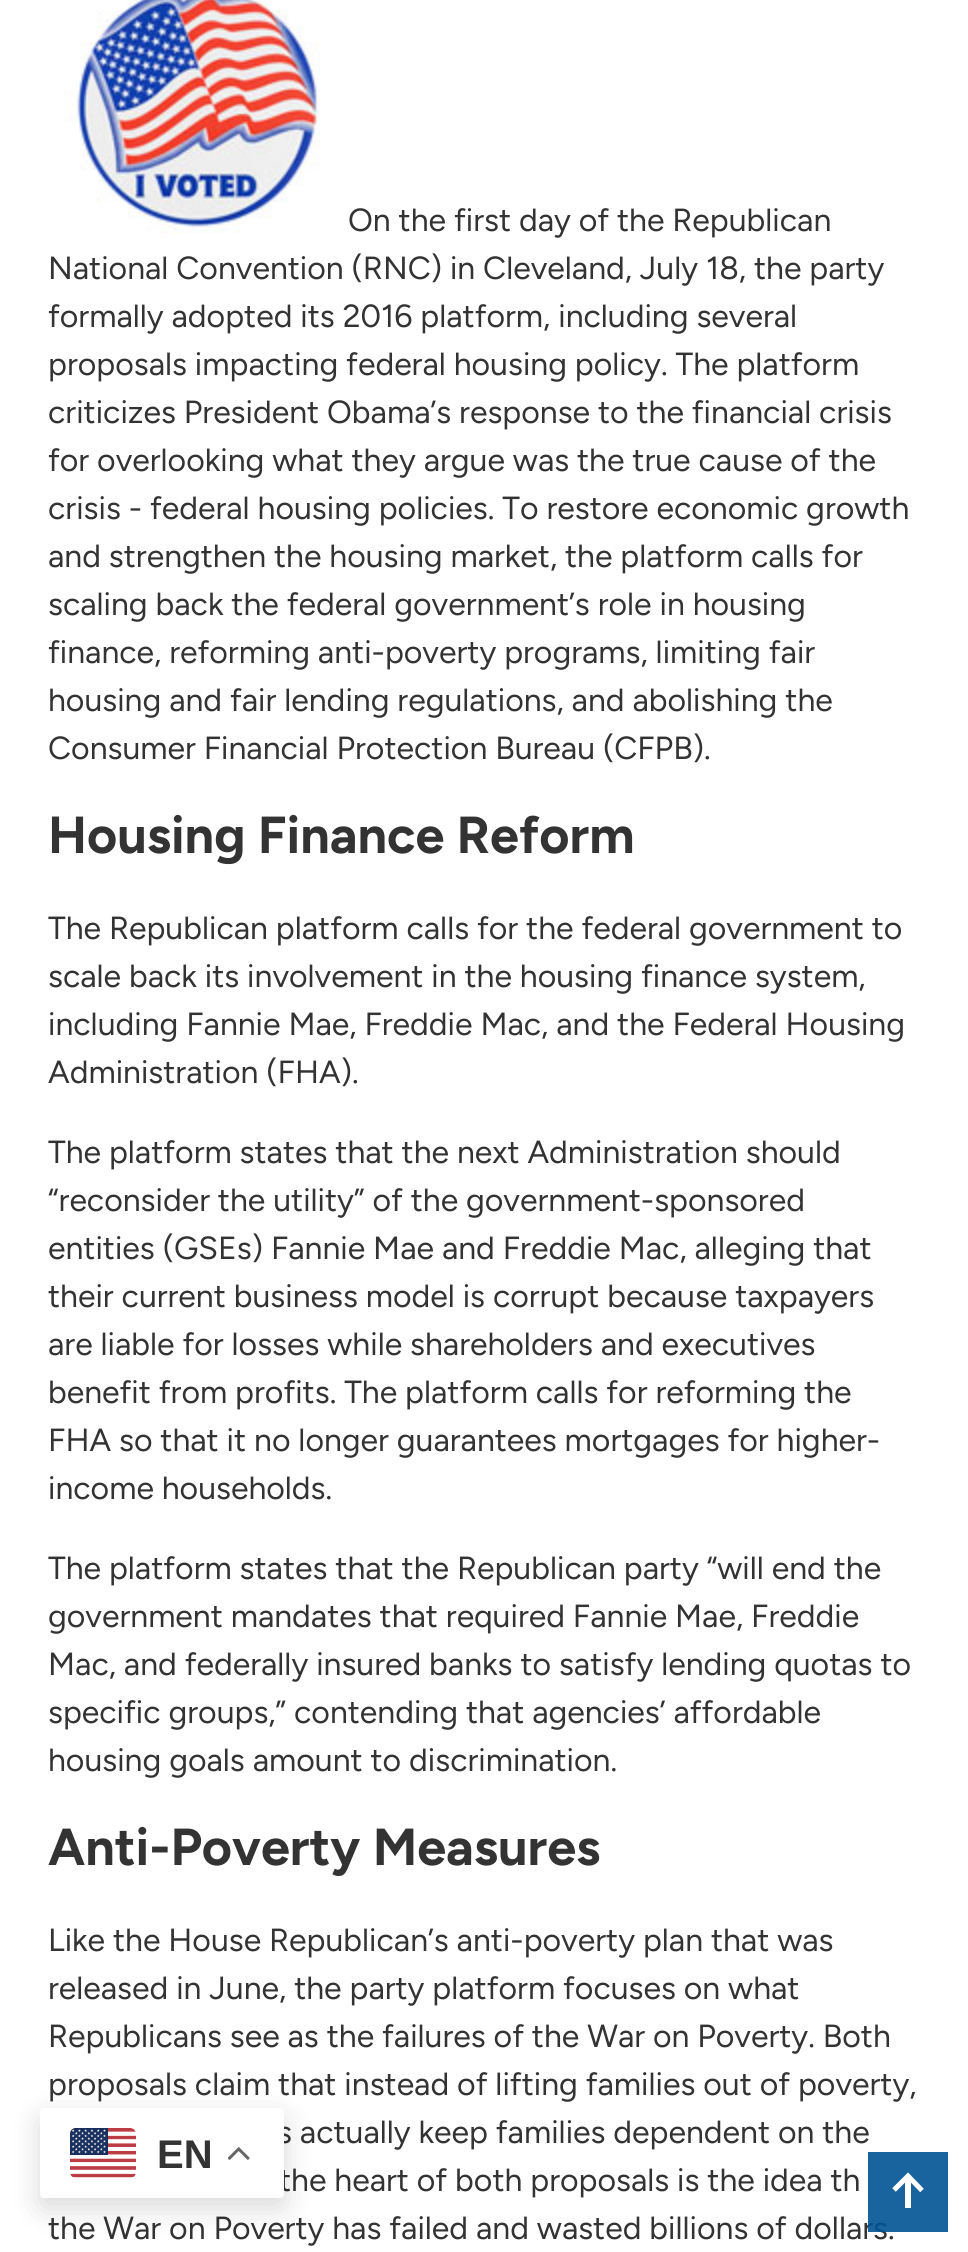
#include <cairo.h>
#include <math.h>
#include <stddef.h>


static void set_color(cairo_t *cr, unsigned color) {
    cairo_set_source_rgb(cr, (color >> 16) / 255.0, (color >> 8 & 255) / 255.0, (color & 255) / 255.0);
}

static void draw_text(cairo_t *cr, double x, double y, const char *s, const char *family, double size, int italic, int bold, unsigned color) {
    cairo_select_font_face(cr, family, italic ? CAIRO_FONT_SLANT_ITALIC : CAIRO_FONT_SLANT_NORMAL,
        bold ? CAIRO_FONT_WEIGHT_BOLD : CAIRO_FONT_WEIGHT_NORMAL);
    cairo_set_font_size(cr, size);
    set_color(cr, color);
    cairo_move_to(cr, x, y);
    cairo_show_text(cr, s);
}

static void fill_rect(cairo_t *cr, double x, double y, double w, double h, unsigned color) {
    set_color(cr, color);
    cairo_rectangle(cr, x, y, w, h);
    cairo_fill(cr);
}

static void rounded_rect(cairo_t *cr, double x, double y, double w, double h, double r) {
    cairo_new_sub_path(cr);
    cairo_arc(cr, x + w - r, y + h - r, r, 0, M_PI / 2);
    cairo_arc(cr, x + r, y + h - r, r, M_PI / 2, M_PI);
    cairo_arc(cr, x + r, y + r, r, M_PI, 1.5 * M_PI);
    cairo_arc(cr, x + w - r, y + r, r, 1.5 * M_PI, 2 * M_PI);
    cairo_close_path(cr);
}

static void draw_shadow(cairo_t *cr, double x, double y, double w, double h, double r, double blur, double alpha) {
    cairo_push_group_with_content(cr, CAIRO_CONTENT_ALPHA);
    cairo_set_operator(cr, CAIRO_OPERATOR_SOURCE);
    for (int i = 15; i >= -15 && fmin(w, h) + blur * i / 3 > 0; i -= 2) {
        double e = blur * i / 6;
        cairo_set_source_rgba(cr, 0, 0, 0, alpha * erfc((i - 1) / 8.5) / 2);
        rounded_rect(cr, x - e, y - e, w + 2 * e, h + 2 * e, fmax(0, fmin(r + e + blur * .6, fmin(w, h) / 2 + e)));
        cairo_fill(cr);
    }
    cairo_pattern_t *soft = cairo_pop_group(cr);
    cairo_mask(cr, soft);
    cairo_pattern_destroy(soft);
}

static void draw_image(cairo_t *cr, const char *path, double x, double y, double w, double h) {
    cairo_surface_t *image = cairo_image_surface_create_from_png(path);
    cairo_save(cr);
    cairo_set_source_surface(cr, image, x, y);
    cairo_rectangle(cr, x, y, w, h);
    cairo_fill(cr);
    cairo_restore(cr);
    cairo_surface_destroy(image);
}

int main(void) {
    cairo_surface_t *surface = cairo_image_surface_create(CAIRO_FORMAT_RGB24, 968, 2252);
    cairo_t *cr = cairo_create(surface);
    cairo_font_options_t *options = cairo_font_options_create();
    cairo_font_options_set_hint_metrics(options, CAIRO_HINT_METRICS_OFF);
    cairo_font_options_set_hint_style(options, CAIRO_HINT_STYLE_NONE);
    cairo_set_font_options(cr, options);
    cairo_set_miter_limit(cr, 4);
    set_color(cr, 0xFFFFFF);
    cairo_paint(cr);
    draw_image(cr, "assets/img1.png", 64, 0, 256, 234);
    draw_text(cr, 348, 231, "On the first day of the Republican", "Figtree", 32, 0, 0, 0x333333);
    draw_text(cr, 48, 279, "National Convention (RNC) in Cleveland, July 18, the party", "Figtree", 32, 0, 0, 0x333333);
    draw_text(cr, 48, 327, "formally adopted its 2016 platform, including several", "Figtree", 32, 0, 0, 0x333333);
    draw_text(cr, 48, 375, "proposals impacting federal housing policy. The platform", "Figtree", 32, 0, 0, 0x333333);
    draw_text(cr, 48, 423, "criticizes President Obama’s response to the financial crisis", "Figtree", 32, 0, 0, 0x333333);
    draw_text(cr, 48, 471, "for overlooking what they argue was the true cause of the", "Figtree", 32, 0, 0, 0x333333);
    draw_text(cr, 48, 519, "crisis - federal housing policies. To restore economic growth", "Figtree", 32, 0, 0, 0x333333);
    draw_text(cr, 48, 567, "and strengthen the housing market, the platform calls for", "Figtree", 32, 0, 0, 0x333333);
    draw_text(cr, 48, 615, "scaling back the federal government’s role in housing", "Figtree", 32, 0, 0, 0x333333);
    draw_text(cr, 48, 663, "finance, reforming anti-poverty programs, limiting fair", "Figtree", 32, 0, 0, 0x333333);
    draw_text(cr, 48, 711, "housing and fair lending regulations, and abolishing the", "Figtree", 32, 0, 0, 0x333333);
    draw_text(cr, 48, 759, "Consumer Financial Protection Bureau (CFPB).", "Figtree", 32, 0, 0, 0x333333);
    draw_text(cr, 48, 853, "Housing Finance Reform", "Figtree", 52, 0, 1, 0x333333);
    draw_text(cr, 48, 939, "The Republican platform calls for the federal government to", "Figtree", 32, 0, 0, 0x333333);
    draw_text(cr, 48, 987, "scale back its involvement in the housing finance system,", "Figtree", 32, 0, 0, 0x333333);
    draw_text(cr, 48, 1035, "including Fannie Mae, Freddie Mac, and the Federal Housing", "Figtree", 32, 0, 0, 0x333333);
    draw_text(cr, 48, 1083, "Administration (FHA).", "Figtree", 32, 0, 0, 0x333333);
    draw_text(cr, 48, 1163, "The platform states that the next Administration should", "Figtree", 32, 0, 0, 0x333333);
    draw_text(cr, 48, 1211, "“reconsider the utility” of the government-sponsored", "Figtree", 32, 0, 0, 0x333333);
    draw_text(cr, 48, 1259, "entities (GSEs) Fannie Mae and Freddie Mac, alleging that", "Figtree", 32, 0, 0, 0x333333);
    draw_text(cr, 48, 1307, "their current business model is corrupt because taxpayers", "Figtree", 32, 0, 0, 0x333333);
    draw_text(cr, 48, 1355, "are liable for losses while shareholders and executives", "Figtree", 32, 0, 0, 0x333333);
    draw_text(cr, 48, 1403, "benefit from profits. The platform calls for reforming the", "Figtree", 32, 0, 0, 0x333333);
    draw_text(cr, 48, 1451, "FHA so that it no longer guarantees mortgages for higher-", "Figtree", 32, 0, 0, 0x333333);
    draw_text(cr, 48, 1499, "income households.", "Figtree", 32, 0, 0, 0x333333);
    draw_text(cr, 48, 1579, "The platform states that the Republican party “will end the", "Figtree", 32, 0, 0, 0x333333);
    draw_text(cr, 48, 1627, "government mandates that required Fannie Mae, Freddie", "Figtree", 32, 0, 0, 0x333333);
    draw_text(cr, 48, 1675, "Mac, and federally insured banks to satisfy lending quotas to", "Figtree", 32, 0, 0, 0x333333);
    draw_text(cr, 48, 1723, "specific groups,” contending that agencies’ affordable", "Figtree", 32, 0, 0, 0x333333);
    draw_text(cr, 48, 1771, "housing goals amount to discrimination.", "Figtree", 32, 0, 0, 0x333333);
    draw_text(cr, 48, 1865, "Anti-Poverty Measures", "Figtree", 52, 0, 1, 0x333333);
    draw_text(cr, 48, 1951, "Like the House Republican’s anti-poverty plan that was", "Figtree", 32, 0, 0, 0x333333);
    draw_text(cr, 48, 1999, "released in June, the party platform focuses on what", "Figtree", 32, 0, 0, 0x333333);
    draw_text(cr, 48, 2047, "Republicans see as the failures of the War on Poverty. Both", "Figtree", 32, 0, 0, 0x333333);
    draw_text(cr, 48, 2095, "proposals claim that instead of lifting families out of poverty,", "Figtree", 32, 0, 0, 0x333333);
    draw_text(cr, 277, 2143, "s actually keep families dependent on the", "Figtree", 32, 0, 0, 0x333333);
    draw_text(cr, 279, 2191, "the heart of both proposals is the idea th", "Figtree", 32, 0, 0, 0x333333);
    draw_text(cr, 48, 2239, "the War on Poverty has failed and wasted billions of dollars.", "Figtree", 32, 0, 0, 0x333333);
    set_color(cr, 0x000000);
    draw_shadow(cr, 40, 2118, 244, 90, 4, 15, 0.15);
    set_color(cr, 0xFFFFFF);
    rounded_rect(cr, 40, 2108, 244, 90, 4);
    cairo_fill(cr);
    draw_image(cr, "assets/img2.png", 70, 2128, 66, 50);
    draw_text(cr, 157, 2168, "EN", "Liberation Sans", 40, 0, 1, 0x333333);
    draw_image(cr, "assets/img3.png", 228, 2147, 22, 13);
    cairo_set_source_rgba(cr, 0, 0.322, 0.584, 0.9);
    cairo_rectangle(cr, 868, 2152, 80, 80);
    cairo_fill(cr);
    fill_rect(cr, 905, 2178, 6, 30, 0xFFFFFF);
    cairo_new_path(cr);
    cairo_move_to(cr, 894, 2190);
    cairo_line_to(cr, 908, 2176);
    cairo_line_to(cr, 922, 2190.5);
    cairo_set_line_width(cr, 5);
    cairo_stroke(cr);
    cairo_surface_write_to_png(surface, "output.png");
    cairo_font_options_destroy(options);
    cairo_destroy(cr);
    cairo_surface_destroy(surface);
    return 0;
}
